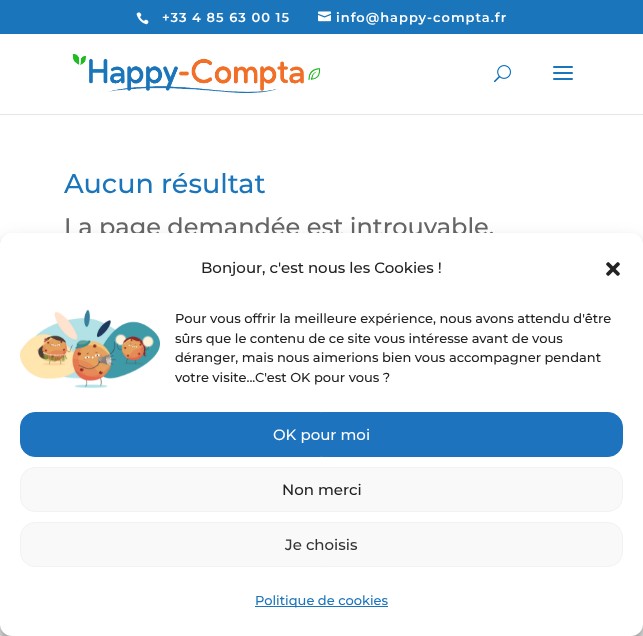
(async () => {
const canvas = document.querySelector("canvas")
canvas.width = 643
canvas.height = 636
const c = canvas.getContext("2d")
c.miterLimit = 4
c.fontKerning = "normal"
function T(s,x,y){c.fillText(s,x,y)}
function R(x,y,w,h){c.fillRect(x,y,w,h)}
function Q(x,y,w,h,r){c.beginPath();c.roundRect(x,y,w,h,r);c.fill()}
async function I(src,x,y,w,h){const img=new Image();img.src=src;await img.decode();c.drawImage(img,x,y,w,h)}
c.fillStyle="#fff"
R(0,0,643,636)
c.fillStyle="#1b75bb"
R(0,0,643,34)
await I("1.png",136,12,13,13)
c.letterSpacing="1px"
c.font="100 13px 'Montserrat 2'"
c.fillStyle="#fff"
T("+33 4 85 63 00 15",162,22)
await I("2.png",318,11,13,11)
T("info@happy-compta.fr",336,22)
c.fillStyle="#e6e6e6"
R(0,114,643,1)
await I("3.png",72,54,249,39)
await I("4.png",494,65,17,18)
await I("5.png",553,66,20,14)
c.letterSpacing="0px"
c.font="100 27px Montserrat"
c.fillStyle="#1b75bb"
T("Aucun résultat",64,193)
c.font="100 24px Montserrat"
c.fillStyle="#666"
T("La page demandée est introuvable.",64,235)
c.fillStyle="#f2f2f2"
R(0,624,643,12)
c.fillStyle="#0000003b"
c.filter="blur(3px)"
c.beginPath()
c.roundRect(0,239,643,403,12)
c.fill()
c.filter="none"
c.fillStyle="#00000030"
c.filter="blur(10px)"
c.beginPath()
c.roundRect(0,243,643,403,12)
c.fill()
c.filter="none"
c.fillStyle="#fff"
Q(0,233,643,403,12)
c.font="100 15px Montserrat"
c.fillStyle="#222"
T("Bonjour, c'est nous les Cookies !",201,273)
await I("6.png",606,262,14,14)
await I("7.png",20,309,140,80)
c.font="100 13px Montserrat"
T("Pour vous offrir la meilleure expérience, nous avons attendu d'être",175,323)
T("sûrs que le contenu de ce site vous intéresse avant de vous",175,343)
T("déranger, mais nous aimerions bien vous accompagner pendant",175,362)
T("votre visite...C'est OK pour vous ?",175,382)
c.fillStyle="#1e73be"
c.beginPath()
c.roundRect(20.5,412.5,602,44,14.5)
c.fill()
c.strokeStyle="#1e73be"
c.stroke()
c.font="100 15px Montserrat"
c.fillStyle="#fff"
T("OK pour moi",273,440)
c.fillStyle="#f9f9f9"
c.beginPath()
c.roundRect(20.5,467.5,602,44,14.5)
c.fill()
c.strokeStyle="#f2f2f2"
c.stroke()
c.fillStyle="#222"
T("Non merci",282,495)
c.fillStyle="#f9f9f9"
c.beginPath()
c.roundRect(20.5,522.5,602,44,14.5)
c.fill()
c.stroke()
c.fillStyle="#333"
T("Je choisis",285,550)
c.fillStyle="#1e73be"
R(255,606,133,1)
c.font="100 13px Montserrat"
c.fillStyle="#1b75bb"
T("Politique de cookies",255,605)
})()
